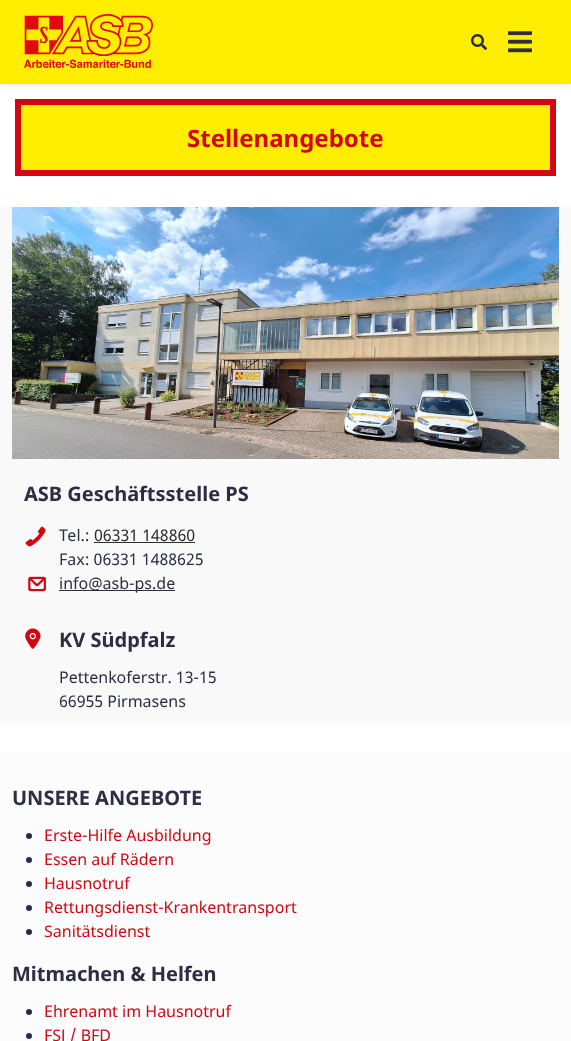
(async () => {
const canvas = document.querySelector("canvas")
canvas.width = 571
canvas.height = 1041
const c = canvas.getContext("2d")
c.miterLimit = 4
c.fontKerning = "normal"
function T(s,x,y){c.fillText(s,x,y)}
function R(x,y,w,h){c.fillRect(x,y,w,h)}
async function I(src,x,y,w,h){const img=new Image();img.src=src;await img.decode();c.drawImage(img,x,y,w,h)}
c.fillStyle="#fff"
R(0,0,571,1041)
c.fillStyle="#00000012"
c.filter="blur(2px)"
c.beginPath()
c.rect(0,2,571,84)
c.fill()
c.filter="none"
c.fillStyle="#fe0"
R(0,0,571,84)
await I("1.png",24,14,129,54)
await I("2.png",471,34,16,16)
await I("3.png",508,31,24,22)
c.beginPath()
c.rect(18,102,535,71)
c.fill()
c.strokeStyle="#d40612"
c.lineWidth=6
c.stroke()
c.font="bold 24px Noto Sans"
c.fillStyle="#d40612"
T("Stellenangebote",187,147)
c.fillStyle="#f9f9f9"
R(0,207,571,516)
await I("4.png",12,207,547,252)
c.font="bold 20px Noto Sans"
c.fillStyle="#2d2d46"
T("ASB Geschäftsstelle PS",24,501)
await I("5.png",25,526,21,21)
c.font="16px Noto Sans"
T("Tel.:",59,541)
c.fillStyle="#2d2d2d"
T("06331 148860",94,541)
R(94,542,101,1)
c.fillStyle="#2d2d46"
T("Fax: 06331 1488625",59,565)
await I("6.png",28,576,18,16)
R(59,590,116,1)
T("info@asb-ps.de",59,589)
await I("7.png",25,628,16,21)
c.font="bold 20px Noto Sans"
T("KV Südpfalz",59,647)
c.font="16px Noto Sans"
T("Pettenkoferstr. 13-15",59,683)
T("66955 Pirmasens",59,707)
c.fillStyle="#fcfcfc"
R(0,753,571,288)
c.font="bold 20px Noto Sans"
c.fillStyle="#2d2d46"
T("UNSERE ANGEBOTE",12,805)
c.beginPath()
c.arc(29,836,3,0,7)
c.fill()
c.font="16px Noto Sans"
c.fillStyle="#d40612"
T("Erste-Hilfe Ausbildung",44,841)
c.fillStyle="#2d2d46"
c.beginPath()
c.arc(29,860,3,0,7)
c.fill()
c.fillStyle="#d40612"
T("Essen auf Rädern",44,865)
c.fillStyle="#2d2d46"
c.beginPath()
c.arc(29,884,3,0,7)
c.fill()
c.fillStyle="#d40612"
T("Hausnotruf",44,889)
c.fillStyle="#2d2d46"
c.beginPath()
c.arc(29,908,3,0,7)
c.fill()
c.fillStyle="#d40612"
T("Rettungsdienst-Krankentransport",44,913)
c.fillStyle="#2d2d46"
c.beginPath()
c.arc(29,932,3,0,7)
c.fill()
c.fillStyle="#d40612"
T("Sanitätsdienst",44,937)
c.font="bold 20px Noto Sans"
c.fillStyle="#2d2d46"
T("Mitmachen & Helfen",12,981)
c.beginPath()
c.arc(29,1012,3,0,7)
c.fill()
c.font="16px Noto Sans"
c.fillStyle="#d40612"
T("Ehrenamt im Hausnotruf",44,1017)
c.fillStyle="#2d2d46"
c.beginPath()
c.arc(29,1036,3,0,7)
c.fill()
c.fillStyle="#d40612"
T("FSJ / BFD",44,1041)
})()
